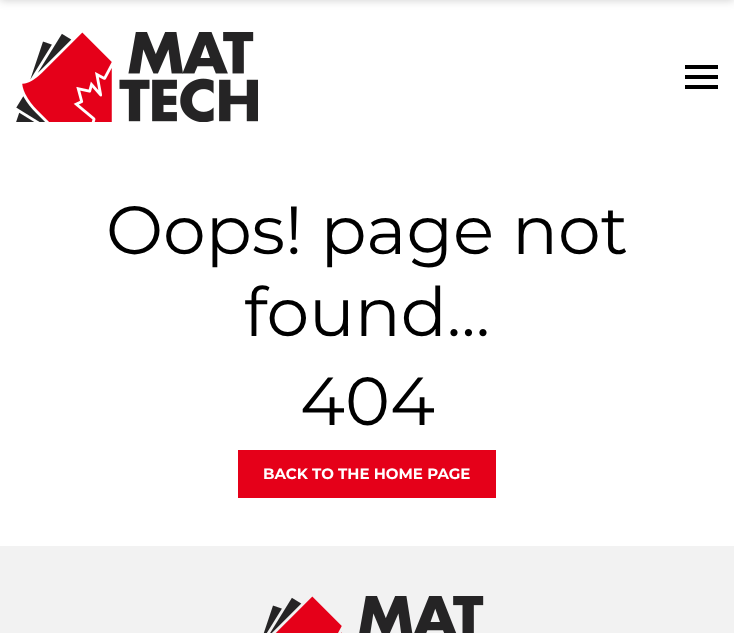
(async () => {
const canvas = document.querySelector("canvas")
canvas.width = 734
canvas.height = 633
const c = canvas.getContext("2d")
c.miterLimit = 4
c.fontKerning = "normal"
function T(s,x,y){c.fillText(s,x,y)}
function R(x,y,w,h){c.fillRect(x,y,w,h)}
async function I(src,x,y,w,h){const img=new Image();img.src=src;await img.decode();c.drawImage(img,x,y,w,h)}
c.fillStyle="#fff"
R(0,0,734,633)
c.fillStyle="#00000033"
c.filter="blur(5px)"
c.beginPath()
c.rect(0,-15,734,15)
c.fill()
c.filter="none"
await I("1.png",16,32,242,90)
c.fillStyle="#000"
R(685,75,33,4)
R(685,65,33,4)
R(685,85,33,4)
c.font="68px Montserrat"
T("Oops! page not",106,254)
T("found...",244,336)
T("404",300,425)
c.fillStyle="#e50019"
R(238,450,258,48)
c.font="bold 15px Montserrat"
c.fillStyle="#fff"
T("BACK TO THE HOME PAGE",263,479)
c.fillStyle="#f2f2f2"
R(0,546,734,87)
await I("2.png",263,596,221,37)
})()
